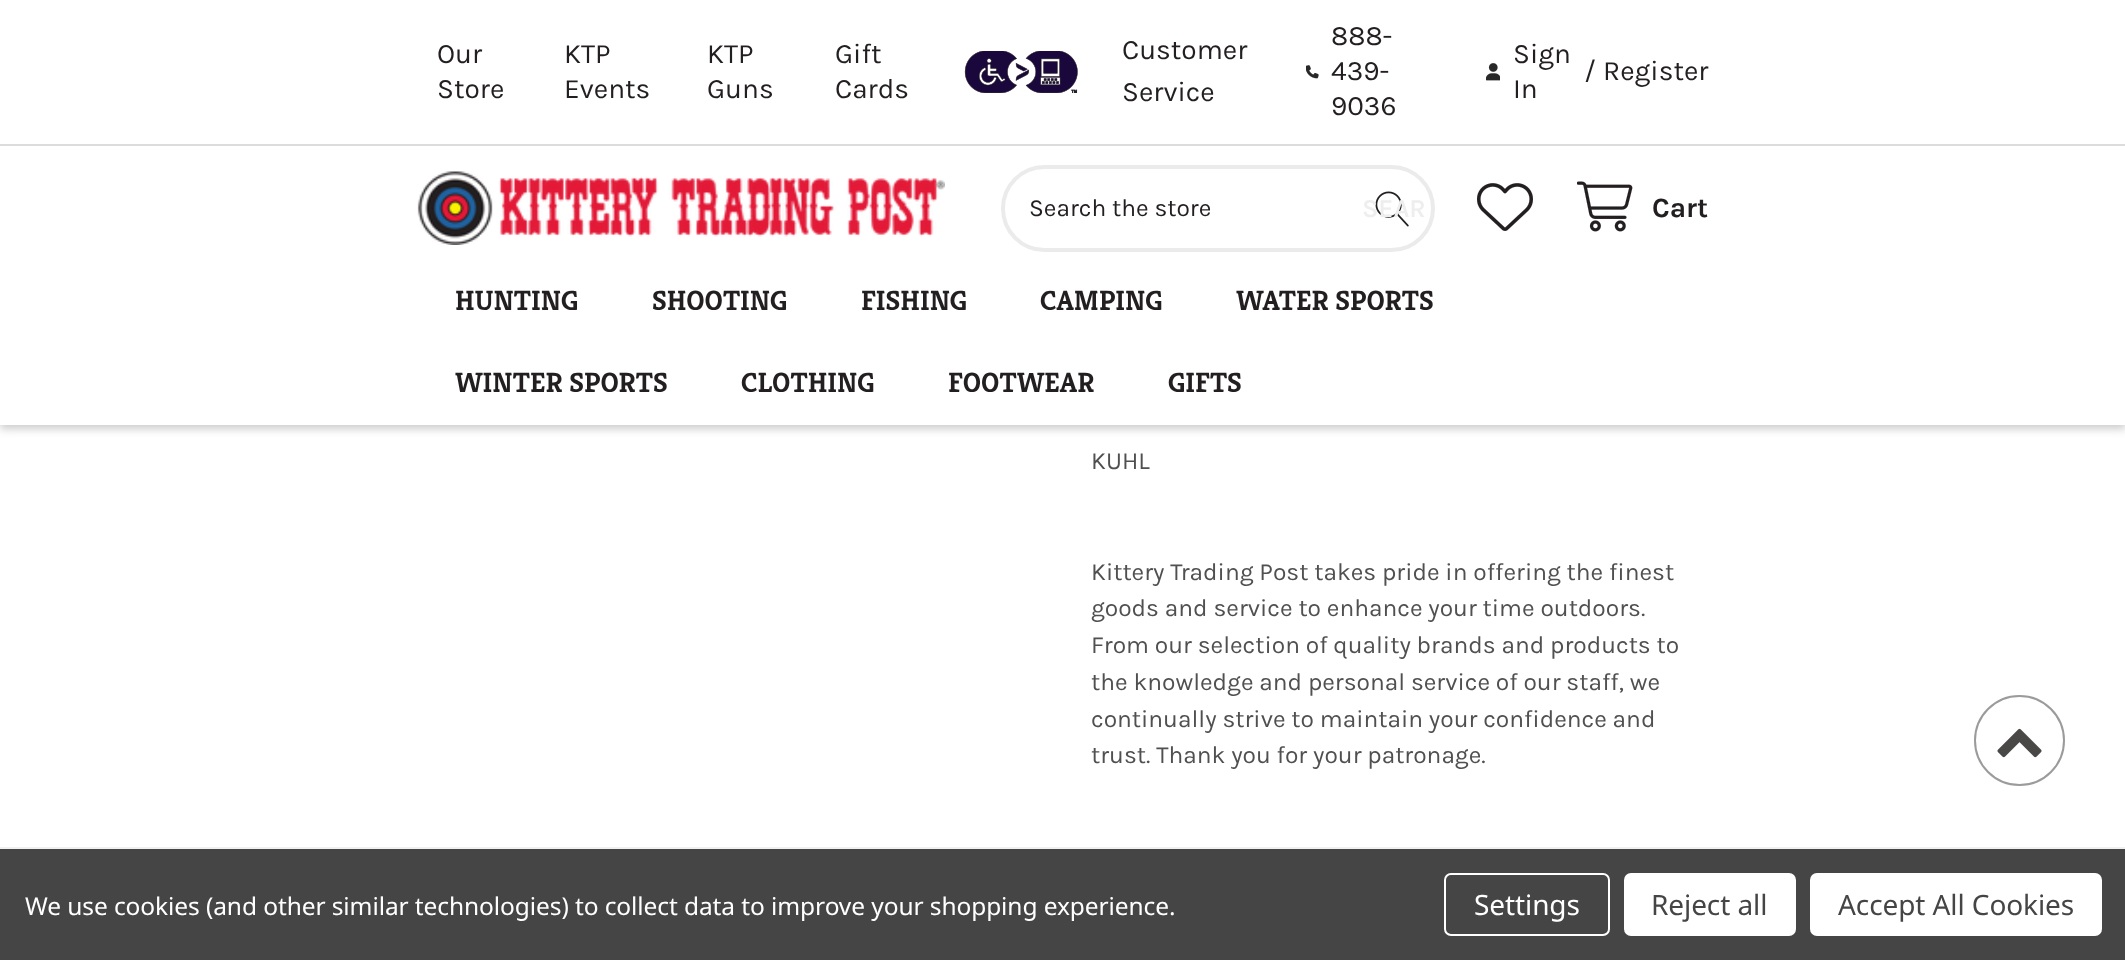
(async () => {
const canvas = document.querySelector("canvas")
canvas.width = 2125
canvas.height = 960
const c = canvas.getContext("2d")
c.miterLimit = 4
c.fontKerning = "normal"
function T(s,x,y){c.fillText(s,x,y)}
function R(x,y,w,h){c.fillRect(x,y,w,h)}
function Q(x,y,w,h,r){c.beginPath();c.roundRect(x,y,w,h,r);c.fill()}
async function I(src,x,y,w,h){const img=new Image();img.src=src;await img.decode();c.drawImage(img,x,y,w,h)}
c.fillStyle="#fff"
R(0,0,2125,960)
c.fillStyle="#00000033"
c.filter="blur(4.5px)"
c.beginPath()
c.rect(0,4,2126,425)
c.fill()
c.filter="none"
c.fillStyle="#fff"
R(0,0,2125,425)
c.fillStyle="#dcdcdc"
R(0,144,2125,2)
c.font="28px Karla"
c.fillStyle="#231f20"
T("Our",437,63)
T("Store",437,98)
T("KTP",564,63)
T("Events",564,98)
T("KTP",707,63)
T("Guns",707,98)
T("Gift",835,63)
T("Cards",835,98)
await I("1.png",964,51,114,42)
T("Customer",1122,59)
T("Service",1122,101)
await I("2.png",1306,65,13,14)
T("888-",1331,45)
T("439-",1331,80)
T("9036",1331,115)
await I("3.png",1486,63,14,18)
T("Sign",1513,63)
T("In",1513,98)
T("/",1584,80)
T("Register",1603,80)
await I("4.png",417,171,528,74)
c.beginPath()
c.roundRect(1003,167,430,83,41.5)
c.strokeStyle="#ebebeb"
c.lineWidth=4
c.stroke()
await I("5.png",1375,191,34,36)
c.font="24.5px Karla"
T("Search the store",1029,216)
c.font="600 26px Karla"
c.fillStyle="#eee"
T("SEAR",1362,217)
await I("6.png",1477,183,56,48)
await I("7.png",1577,181,56,51)
c.font="bold 28px Karla"
c.fillStyle="#231f20"
T("Cart",1652,217)
c.font="bold 28px Kreon"
T("HUNTING",455,310)
T("SHOOTING",652,310)
T("FISHING",861,310)
T("CAMPING",1040,310)
T("WATER SPORTS",1236,310)
T("WINTER SPORTS",455,392)
T("CLOTHING",741,392)
T("FOOTWEAR",948,392)
T("GIFTS",1168,392)
c.font="24.5px Karla"
c.fillStyle="#505050"
T("KUHL",1091,469)
T("Kittery Trading Post takes pride in offering the finest",1091,580)
T("goods and service to enhance your time outdoors.",1091,616)
T("From our selection of quality brands and products to",1091,653)
T("the knowledge and personal service of our staff, we",1091,690)
T("continually strive to maintain your confidence and",1091,727)
T("trust. Thank you for your patronage.",1091,763)
c.fillStyle="#f0f0f0"
R(0,847,2125,2)
c.beginPath()
c.arc(2019.5,740.5,44.5,0,7)
c.strokeStyle="#9b9b9b"
c.lineWidth=2
c.stroke()
await I("8.png",1997,728,45,30)
c.fillStyle="#454545"
R(0,849,2125,111)
c.letterSpacing="-0.09px"
c.font="24.5px Noto Sans"
c.fillStyle="#fff"
T("We use cookies (and other similar technologies) to collect data to improve your shopping experience.",25,915)
c.beginPath()
c.roundRect(1445,874,164,61,6)
c.strokeStyle="#fff"
c.stroke()
c.font="28px Noto Sans"
T("Settings",1474,915)
Q(1624,873,172,63,7)
c.fillStyle="#454545"
T("Reject all",1651,915)
c.fillStyle="#fff"
Q(1810,873,292,63,7)
c.fillStyle="#454545"
T("Accept All Cookies",1838,915)
})()
